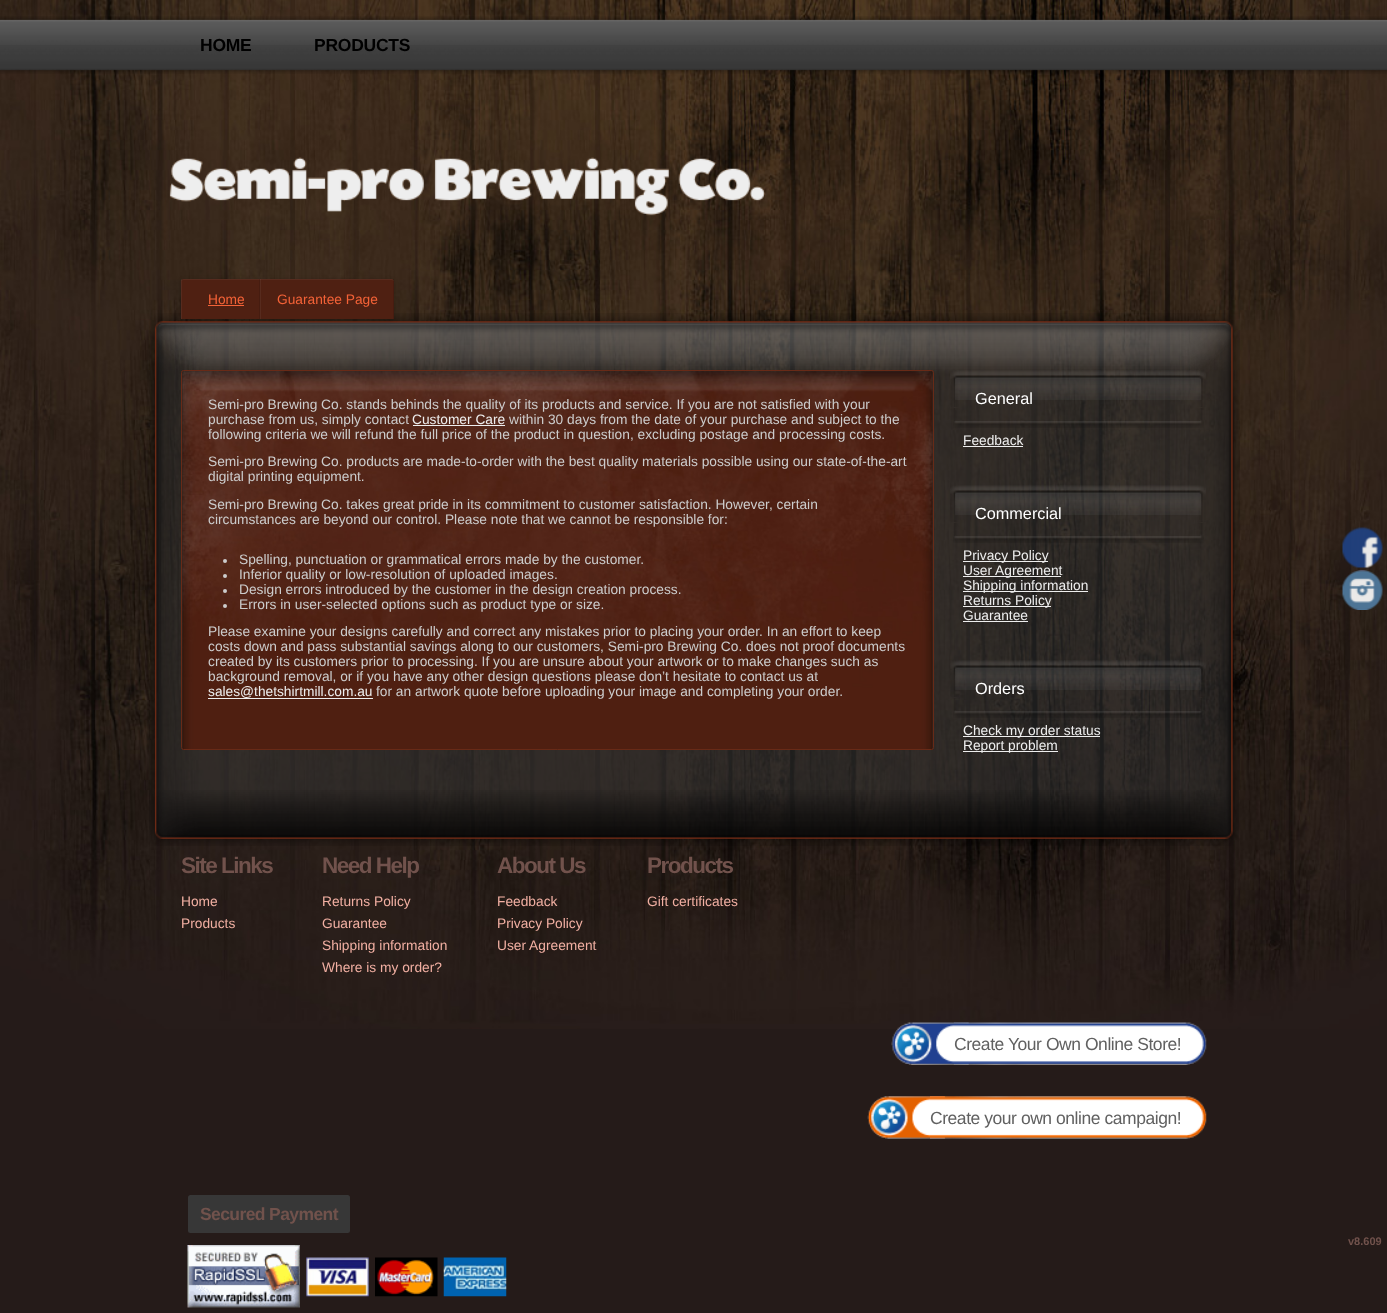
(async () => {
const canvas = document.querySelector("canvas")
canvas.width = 1387
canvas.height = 1313
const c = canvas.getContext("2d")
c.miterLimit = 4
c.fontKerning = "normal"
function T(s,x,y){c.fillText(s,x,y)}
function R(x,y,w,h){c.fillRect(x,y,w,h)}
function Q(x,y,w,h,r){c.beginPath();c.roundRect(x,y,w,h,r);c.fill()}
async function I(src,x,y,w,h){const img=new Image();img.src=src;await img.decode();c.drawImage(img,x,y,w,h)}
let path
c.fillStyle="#251b19"
R(0,0,1387,1313)
await I("1.png",0,0,1387,1029)
await I("2.png",0,16,1387,58)
c.letterSpacing="-0.25px"
c.font="bold 17.5px Liberation Sans"
c.fillStyle="#000"
T("HOME",200,51)
T("PRODUCTS",314,51)
await I("3.png",169,157,597,59)
await I("4.png",147,313,1093,477)
c.fillStyle="#00000033"
c.filter="blur(2px)"
c.beginPath()
c.roundRect(181,280,213,40,2.5)
c.fill()
c.filter="none"
c.fillStyle="#4f2012"
c.beginPath()
c.roundRect(181,279,213,40,[2.5,2.5,0,0])
c.fill()
c.fillStyle="#ffffff0d"
path = new Path2D("M184 280h207c2 0 3 1 3 2c0-2-1-3-2-3h-208c-2 0-3 1-3 3c0-1 1-2 3-2z")
c.fill(path)
c.fillStyle="#0000001a"
R(259,279,1,40)
c.fillStyle="#ffffff0d"
R(181,279,1,40)
c.letterSpacing="0px"
c.font="13.75px Liberation Sans"
c.fillStyle="#f46237"
T("Home",208,304)
R(208,305,36,1)
c.fillStyle="#0000001a"
R(393,279,1,40)
c.fillStyle="#ffffff0d"
R(260,279,1,40)
c.fillStyle="#f46237"
T("Guarantee Page",277,304)
await I("5.png",182,371,751,379)
c.beginPath()
c.roundRect(181.5,370.5,752,379,2)
c.strokeStyle="#682a17"
c.stroke()
c.fillStyle="#ccc"
T("Semi-pro Brewing Co. stands behinds the quality of its products and service. If you are not satisfied with your",208,409)
T("purchase from us, simply contact",208,424)
c.fillStyle="#eee"
T("Customer Care",412,424)
R(413,425,92,1)
c.fillStyle="#ccc"
T("within 30 days from the date of your purchase and subject to the",509,424)
T("following criteria we will refund the full price of the product in question, excluding postage and processing costs.",208,439)
T("Semi-pro Brewing Co. products are made-to-order with the best quality materials possible using our state-of-the-art",208,466)
T("digital printing equipment.",208,481)
T("Semi-pro Brewing Co. takes great pride in its commitment to customer satisfaction. However, certain",208,509)
T("circumstances are beyond our control. Please note that we cannot be responsible for:",208,524)
c.beginPath()
c.arc(225,561,2,0,7)
c.fill()
T("Spelling, punctuation or grammatical errors made by the customer.",239,564)
c.beginPath()
c.arc(225,576,2,0,7)
c.fill()
T("Inferior quality or low-resolution of uploaded images.",239,579)
c.beginPath()
c.arc(225,591,2,0,7)
c.fill()
T("Design errors introduced by the customer in the design creation process.",239,594)
c.beginPath()
c.arc(225,606,2,0,7)
c.fill()
T("Errors in user-selected options such as product type or size.",239,609)
T("Please examine your designs carefully and correct any mistakes prior to placing your order. In an effort to keep",208,636)
T("costs down and pass substantial savings along to our customers, Semi-pro Brewing Co. does not proof documents",208,651)
T("created by its customers prior to processing. If you are unsure about your artwork or to make changes such as",208,666)
T("background removal, or if you have any other design questions please don’t hesitate to contact us at",208,681)
c.fillStyle="#eee"
T("sales@thetshirtmill.com.au",208,696)
R(208,698,165,1)
c.fillStyle="#ccc"
T("for an artwork quote before uploading your image and completing your order.",376,696)
await I("6.png",950,370,256,37)
c.font="16.25px Liberation Sans"
c.fillStyle="#fff"
T("General",975,404)
await I("7.png",953,408,251,20)
c.font="13.75px Liberation Sans"
c.fillStyle="#eee"
T("Feedback",963,445)
R(963,446,60,1)
await I("8.png",950,485,256,37)
c.font="16.25px Liberation Sans"
c.fillStyle="#fff"
T("Commercial",975,519)
await I("9.png",953,523,251,20)
c.fillStyle="#eee"
R(963,561,85,1)
c.font="13.75px Liberation Sans"
T("Privacy Policy",963,560)
R(963,576,98,1)
T("User Agreement",963,575)
R(963,591,125,1)
T("Shipping information",963,590)
R(963,606,88,1)
T("Returns Policy",963,605)
T("Guarantee",963,620)
R(963,621,65,1)
await I("10.png",950,660,256,37)
c.font="16.25px Liberation Sans"
c.fillStyle="#fff"
T("Orders",975,694)
await I("11.png",953,698,249,20)
c.fillStyle="#eee"
R(963,736,137,1)
c.font="13.75px Liberation Sans"
T("Check my order status",963,735)
R(963,751,95,1)
T("Report problem",963,750)
await I("12.png",149,790,1090,56)
c.letterSpacing="-1.5px"
c.font="bold 22.5px Liberation Sans"
c.fillStyle="#71524c"
T("Site Links",181,873)
c.letterSpacing="0px"
c.font="13.75px Liberation Sans"
c.fillStyle="#f1afa2"
T("Home",181,906)
T("Products",181,928)
c.letterSpacing="-1.5px"
c.font="bold 22.5px Liberation Sans"
c.fillStyle="#71524c"
T("Need Help",322,873)
c.letterSpacing="0px"
c.font="13.75px Liberation Sans"
c.fillStyle="#f1afa2"
T("Returns Policy",322,906)
T("Guarantee",322,928)
T("Shipping information",322,950)
T("Where is my order?",322,972)
c.letterSpacing="-1.5px"
c.font="bold 22.5px Liberation Sans"
c.fillStyle="#71524c"
T("About Us",497,873)
c.letterSpacing="0px"
c.font="13.75px Liberation Sans"
c.fillStyle="#f1afa2"
T("Feedback",497,906)
T("Privacy Policy",497,928)
T("User Agreement",497,950)
c.letterSpacing="-1.5px"
c.font="bold 22.5px Liberation Sans"
c.fillStyle="#71524c"
T("Products",647,873)
c.letterSpacing="0px"
c.font="13.75px Liberation Sans"
c.fillStyle="#f1afa2"
T("Gift certificates",647,906)
await I("13.png",891,1022,78,43)
await I("14.png",953,1022,254,43)
c.letterSpacing="-0.45px"
c.font="17.5px Liberation Sans"
c.fillStyle="#616161"
T("Create Your Own Online Store!",954,1050)
await I("15.png",867,1096,79,43)
await I("16.png",930,1096,277,43)
T("Create your own online campaign!",930,1124)
c.fillStyle="#373737"
Q(188,1195,162,38,2.5)
c.letterSpacing="-0.6px"
c.font="bold 17.5px Liberation Sans"
c.fillStyle="#71524c"
T("Secured Payment",200,1220)
await I("17.png",187,1245,113,63)
await I("18.png",306,1257,63,40)
await I("19.png",375,1257,63,40)
await I("20.png",443,1257,64,40)
c.letterSpacing="0px"
c.font="bold 11px Liberation Sans"
T("v8.609",1348,1245)
await I("21.png",1342,527,41,41)
await I("22.png",1342,570,41,40)
})()
